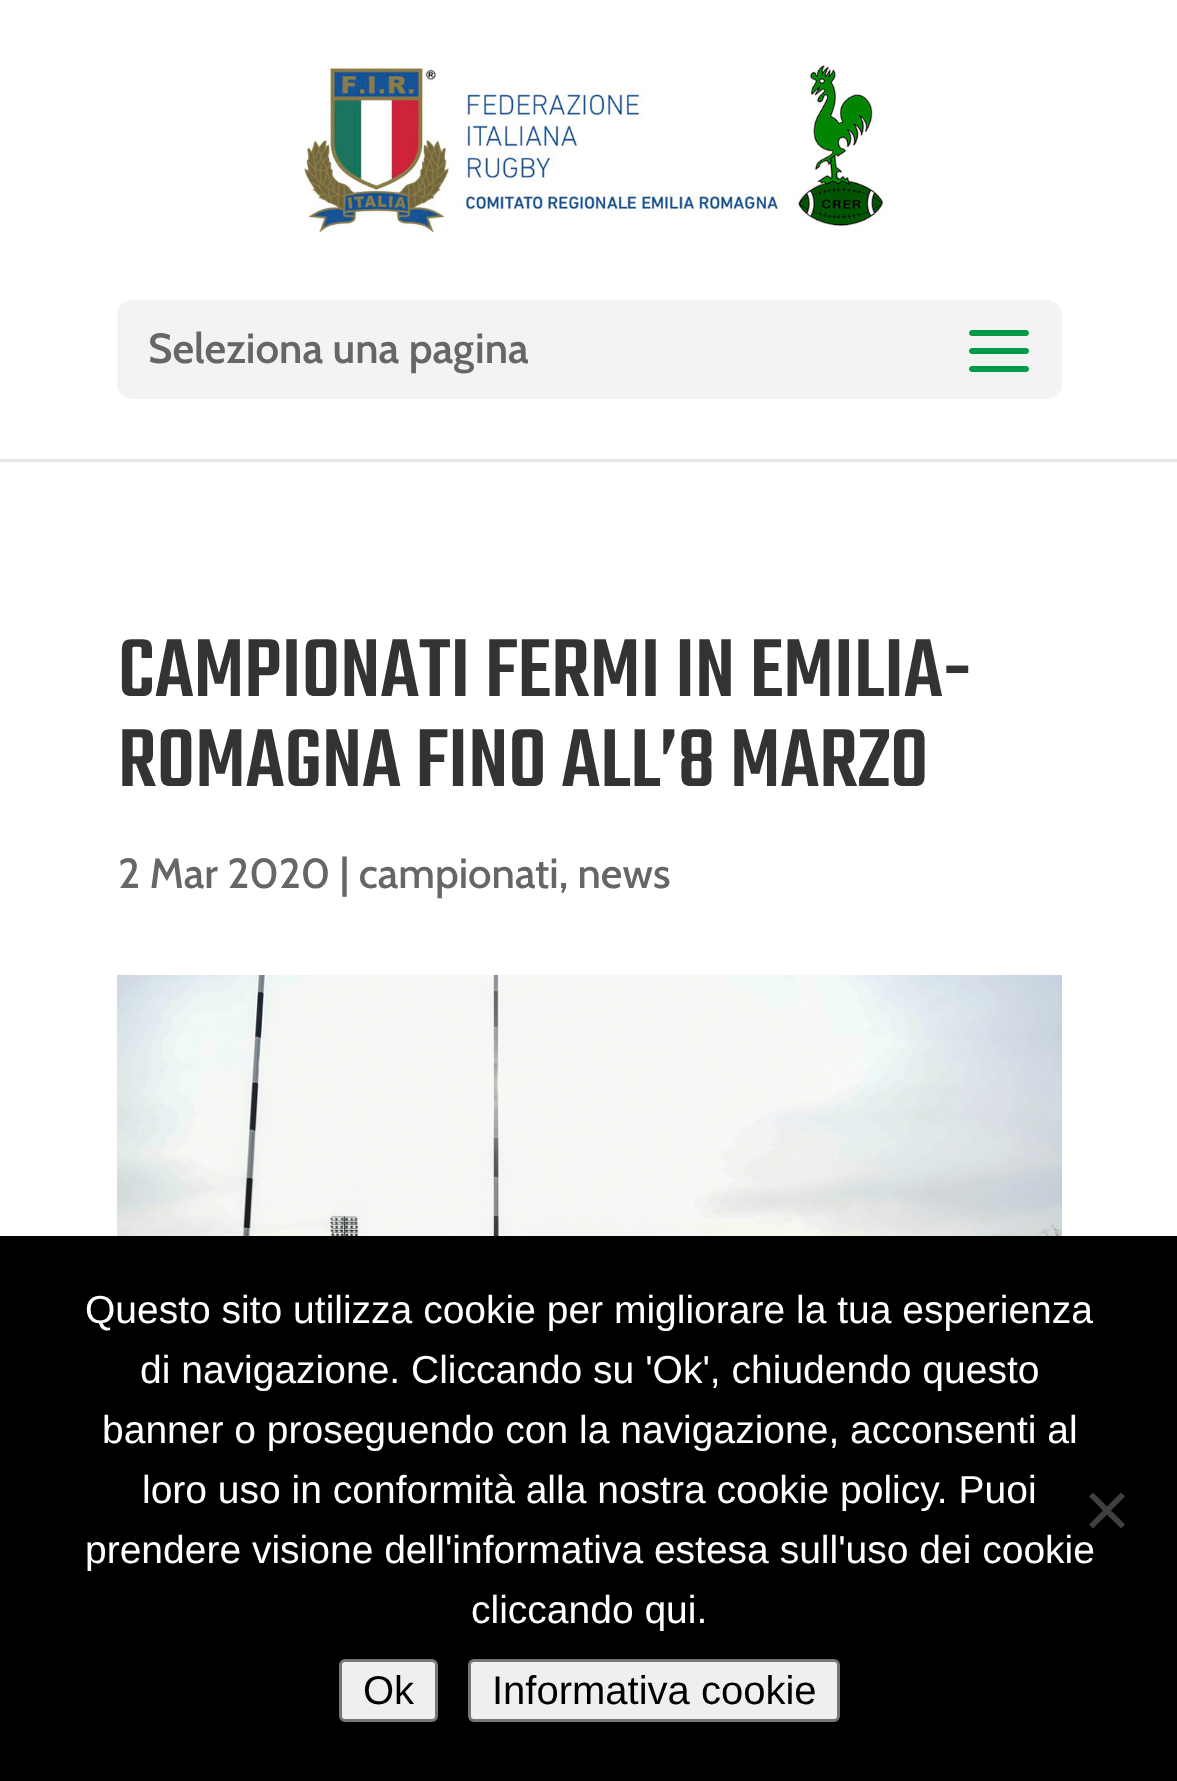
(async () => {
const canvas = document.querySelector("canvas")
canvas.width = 1177
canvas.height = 1781
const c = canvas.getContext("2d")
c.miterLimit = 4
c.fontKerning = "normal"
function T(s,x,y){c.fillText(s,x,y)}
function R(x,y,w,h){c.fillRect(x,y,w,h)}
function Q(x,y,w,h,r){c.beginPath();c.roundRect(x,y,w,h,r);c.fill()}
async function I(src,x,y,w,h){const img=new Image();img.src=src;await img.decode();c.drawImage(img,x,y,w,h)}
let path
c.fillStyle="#fff"
R(0,0,1177,1781)
c.fillStyle="#e6e6e6"
R(0,459,1177,3)
await I("1.png",303,64,583,169)
c.fillStyle="#f3f3f3"
Q(117,300,945,99,15)
c.font="600 42px Cabin"
c.fillStyle="#666"
T("Seleziona una pagina",148,363)
await I("2.png",969,330,60,42)
c.font="500 90px Teko"
c.fillStyle="#333"
T("CAMPIONATI FERMI IN EMILIA-",118,696)
T("ROMAGNA FINO ALL’8 MARZO",118,786)
c.font="500 42px Cabin"
c.fillStyle="#666"
T("2 Mar 2020 | campionati, news",118,888)
await I("3.png",117,975,945,261)
c.fillStyle="#000"
R(0,1236,1177,545)
c.font="39px Liberation Sans"
c.fillStyle="#fff"
T("Questo sito utilizza cookie per migliorare la tua esperienza",85,1323)
T("di navigazione. Cliccando su 'Ok', chiudendo questo",140,1383)
T("banner o proseguendo con la navigazione, acconsenti al",102,1443)
T("loro uso in conformità alla nostra cookie policy. Puoi",142,1503)
T("prendere visione dell'informativa estesa sull'uso dei cookie",85,1563)
T("cliccando qui.",471,1623)
c.fillStyle="#404040"
path = new Path2D("M1121 1492.5l4 4l-32 32l-4-4z")
c.fill(path)
path = new Path2D("M1089 1496.5l4-4l32 32l-4 4z")
c.fill(path)
c.fillStyle="#efefef"
c.beginPath()
c.roundRect(340.5,1660.5,96,60,4.5)
c.fill()
c.strokeStyle="#767676"
c.lineWidth=3
c.stroke()
c.font="40px Liberation Sans"
c.fillStyle="#000"
T("Ok",363,1704)
c.fillStyle="#efefef"
c.beginPath()
c.roundRect(469.5,1660.5,369,60,4.5)
c.fill()
c.stroke()
c.fillStyle="#000"
T("Informativa cookie",492,1704)
})()
